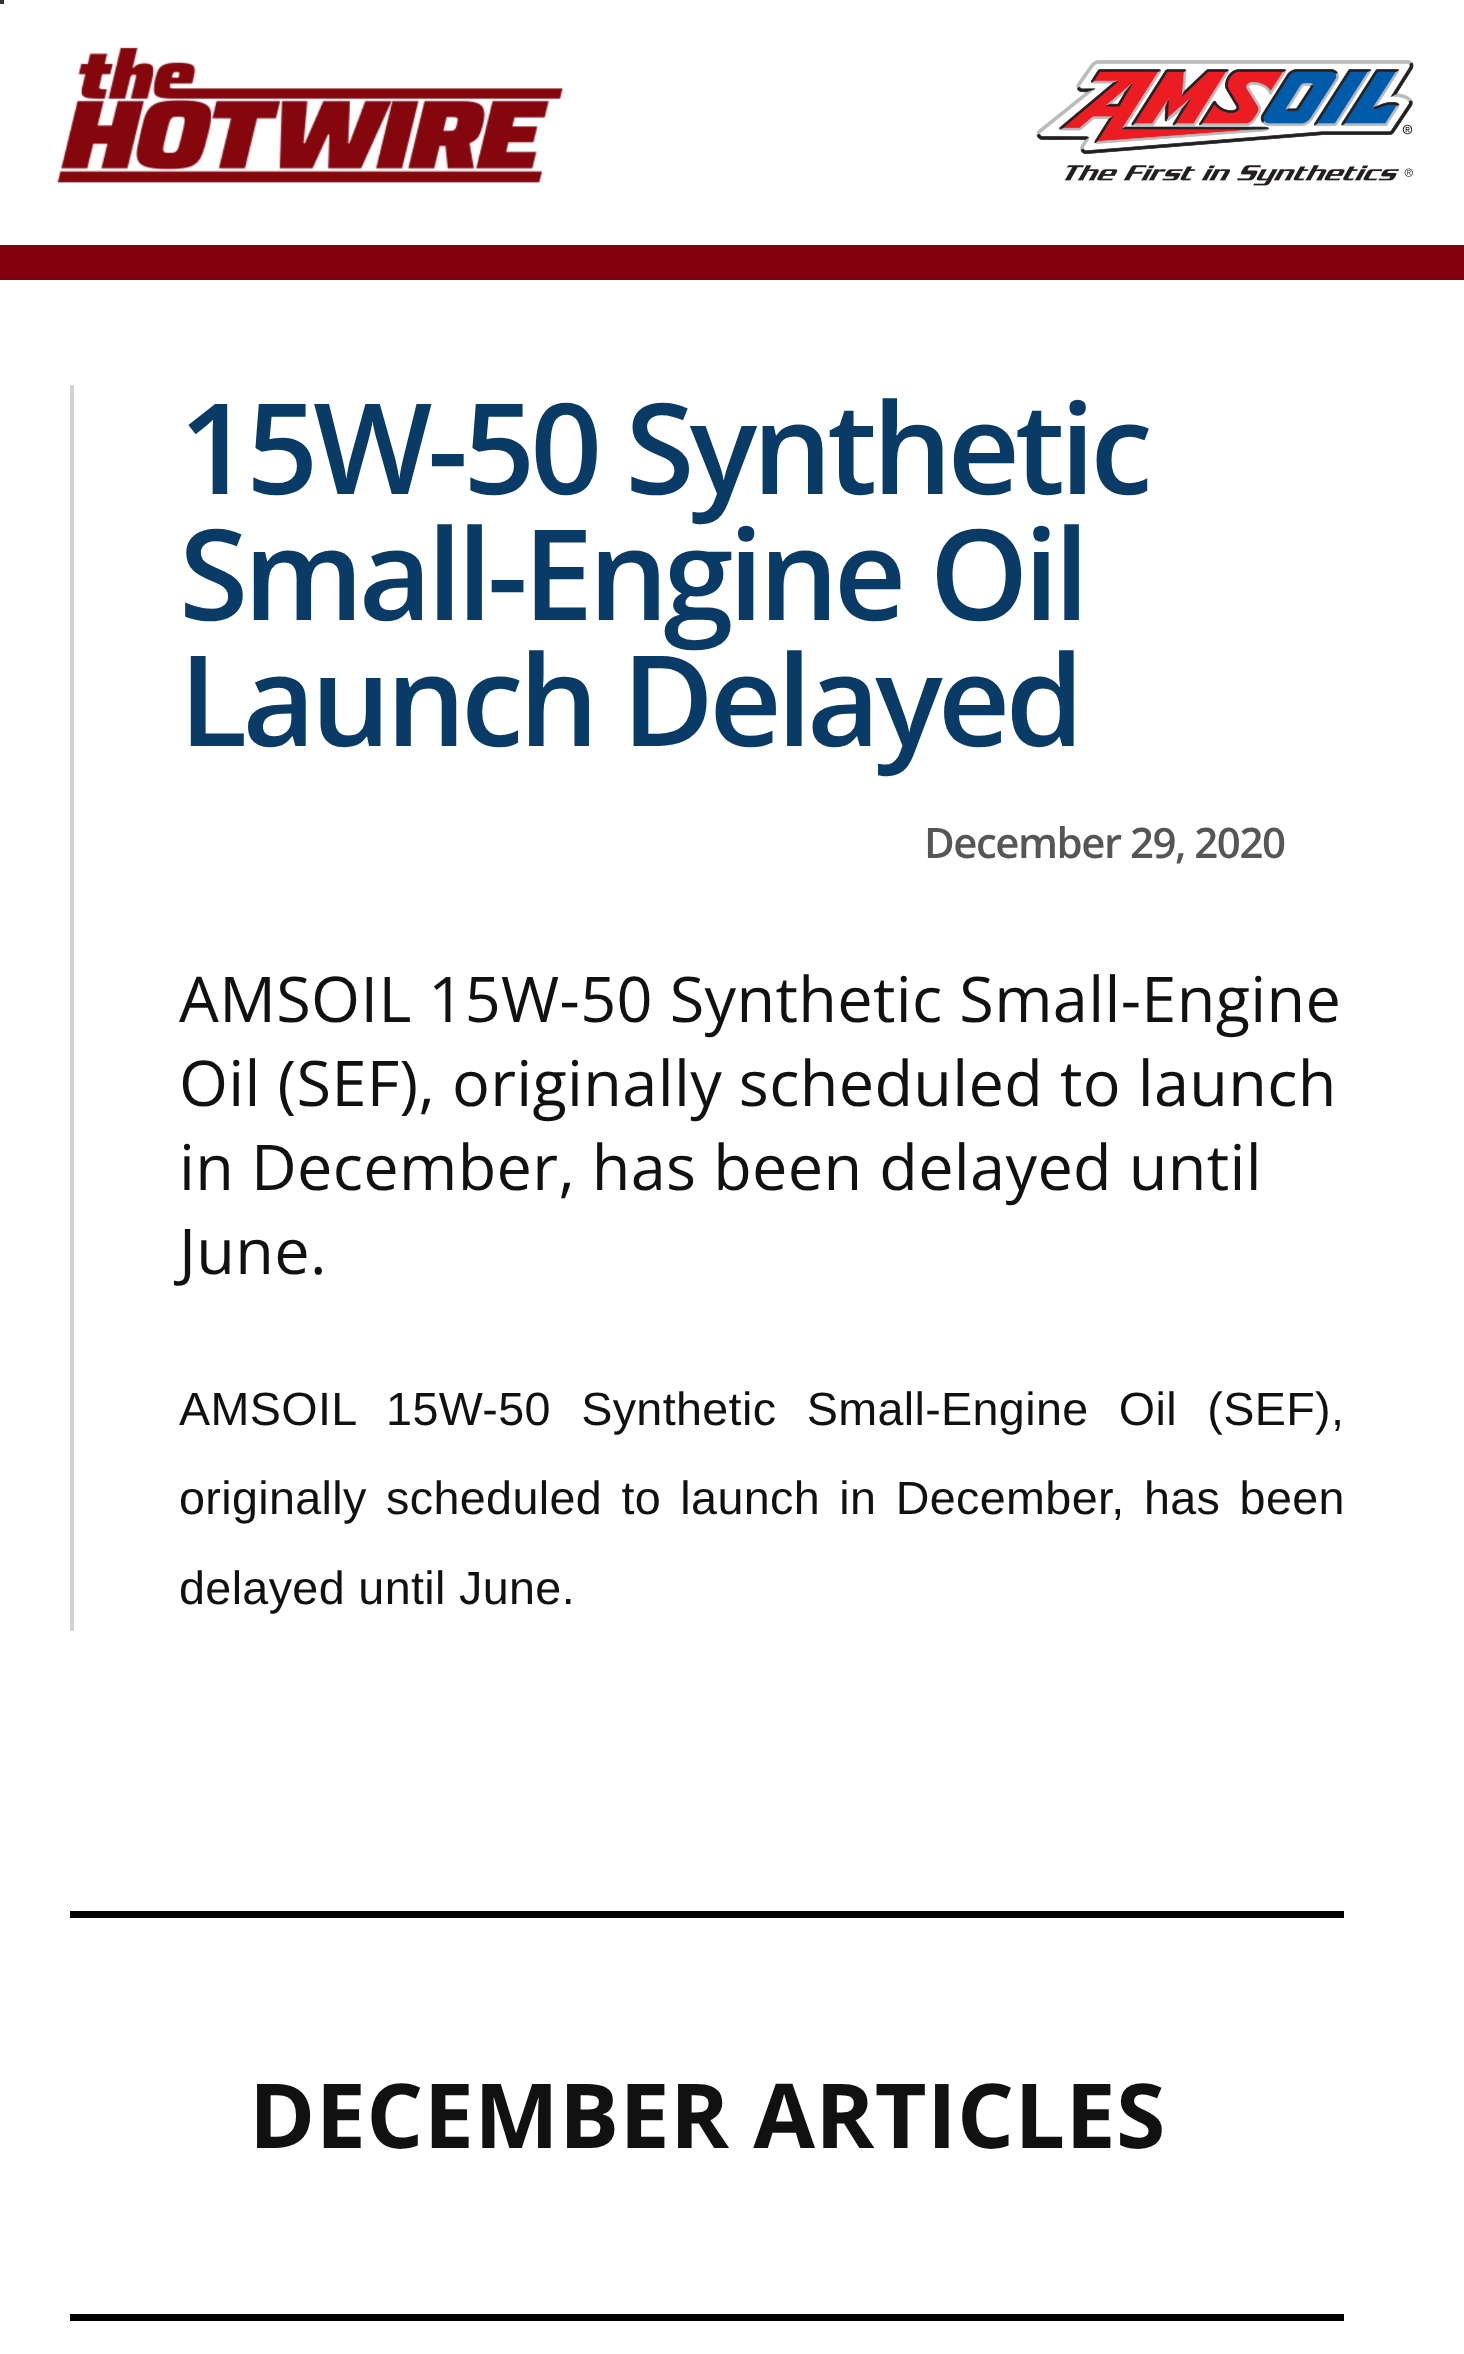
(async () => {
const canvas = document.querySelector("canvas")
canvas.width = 1464
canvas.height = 2354
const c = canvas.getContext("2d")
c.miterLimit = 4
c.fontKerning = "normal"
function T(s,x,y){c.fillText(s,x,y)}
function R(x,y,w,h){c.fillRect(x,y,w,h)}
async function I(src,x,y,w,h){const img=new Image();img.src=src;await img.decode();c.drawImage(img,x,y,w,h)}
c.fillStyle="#fff"
R(0,0,1464,2354)
c.fillStyle="#333"
R(0,0,4,4)
c.fillStyle="#84000e"
R(0,245,1464,35)
await I("1.png",56,47,507,137)
await I("2.png",1036,60,378,126)
c.fillStyle="#d0d0d0"
R(70,385,4,1246)
c.letterSpacing="-4.9px"
c.font="600 126px Open Sans"
c.fillStyle="#093b66"
T("15W-50 Synthetic",179,494)
T("Small-Engine Oil",179,620)
T("Launch Delayed",179,746)
c.letterSpacing="-1.5px"
c.font="600 42px Open Sans"
c.fillStyle="#565656"
T("December 29, 2020",924,858)
c.letterSpacing="0.35px"
c.font="63px Open Sans"
c.fillStyle="#111"
T("AMSOIL 15W-50 Synthetic Small-Engine",179,1022)
T("Oil (SEF), originally scheduled to launch",179,1106)
T("in December, has been delayed until",179,1190)
T("June.",179,1274)
c.wordSpacing="17px"
c.font="46.7px Liberation Sans"
T("AMSOIL 15W-50 Synthetic Small-Engine Oil (SEF),",179,1425)
c.wordSpacing="6px"
T("originally scheduled to launch in December, has been",179,1514)
c.wordSpacing="0px"
T("delayed until June.",179,1604)
c.fillStyle="#000"
R(70,1911,1274,7)
c.font="bold 89.6px Open Sans"
c.fillStyle="#111"
T("DECEMBER ARTICLES",249,2148)
c.fillStyle="#000"
R(70,2314,1274,7)
})()
